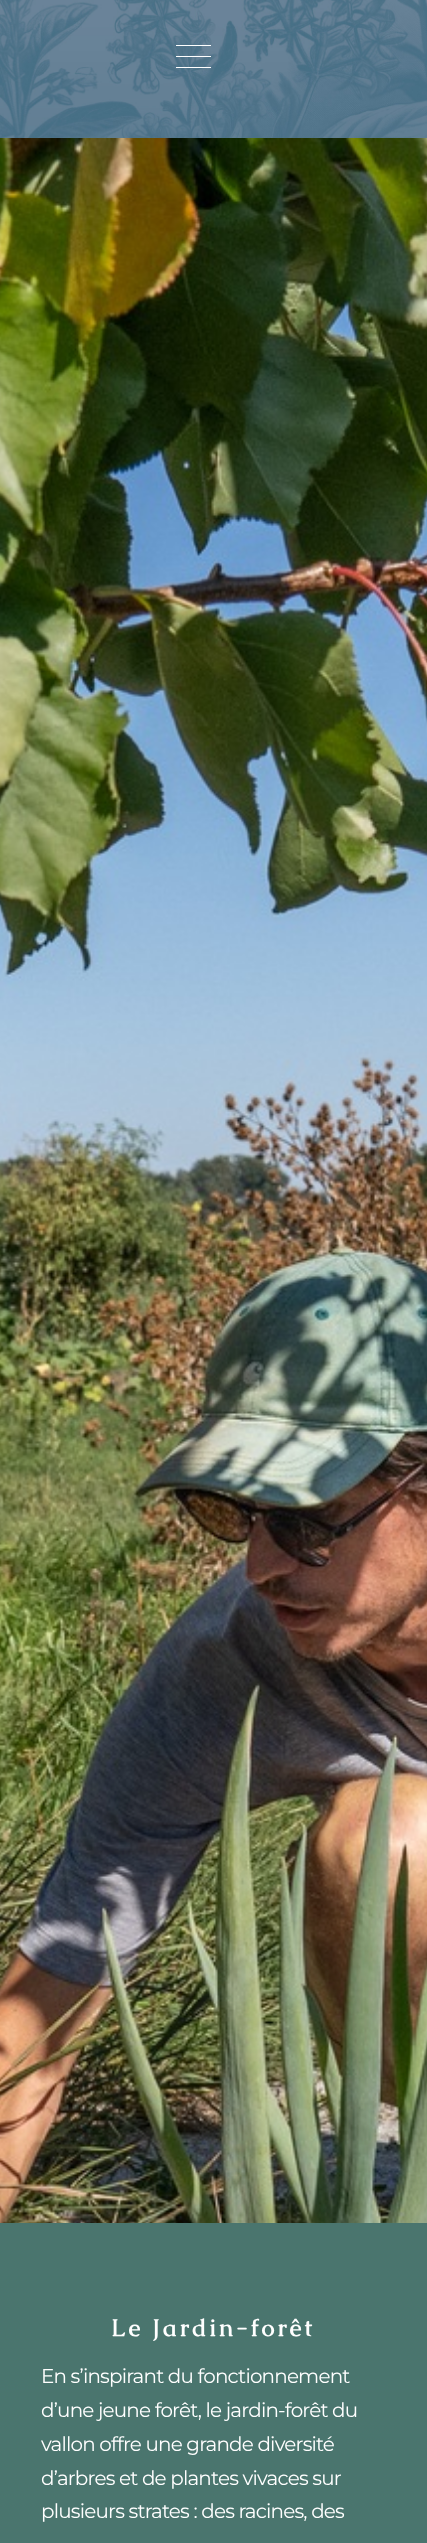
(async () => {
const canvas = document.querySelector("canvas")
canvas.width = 427
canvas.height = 2543
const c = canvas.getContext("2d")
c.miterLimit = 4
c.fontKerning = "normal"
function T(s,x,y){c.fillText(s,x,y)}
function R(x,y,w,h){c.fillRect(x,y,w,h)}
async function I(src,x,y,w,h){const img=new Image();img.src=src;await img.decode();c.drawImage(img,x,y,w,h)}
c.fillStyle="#fff"
R(0,0,427,2543)
await I("1.png",0,0,427,138)
R(176,45,35,1)
R(176,56,35,1)
R(176,67,35,1)
await I("2.png",0,138,427,2085)
c.fillStyle="#4a756e"
R(0,2223,427,320)
c.letterSpacing="2.7px"
c.font="bold 24.25px Caudex"
c.fillStyle="#fff"
T("Le Jardin-forêt",111,2336)
c.letterSpacing="-0.8px"
c.font="19.9px Montserrat"
T("En s’inspirant du fonctionnement",41,2383)
T("d’une jeune forêt, le jardin-forêt du",41,2417)
T("vallon offre une grande diversité",41,2451)
T("d’arbres et de plantes vivaces sur",41,2485)
T("plusieurs strates : des racines, des",41,2518)
})()
